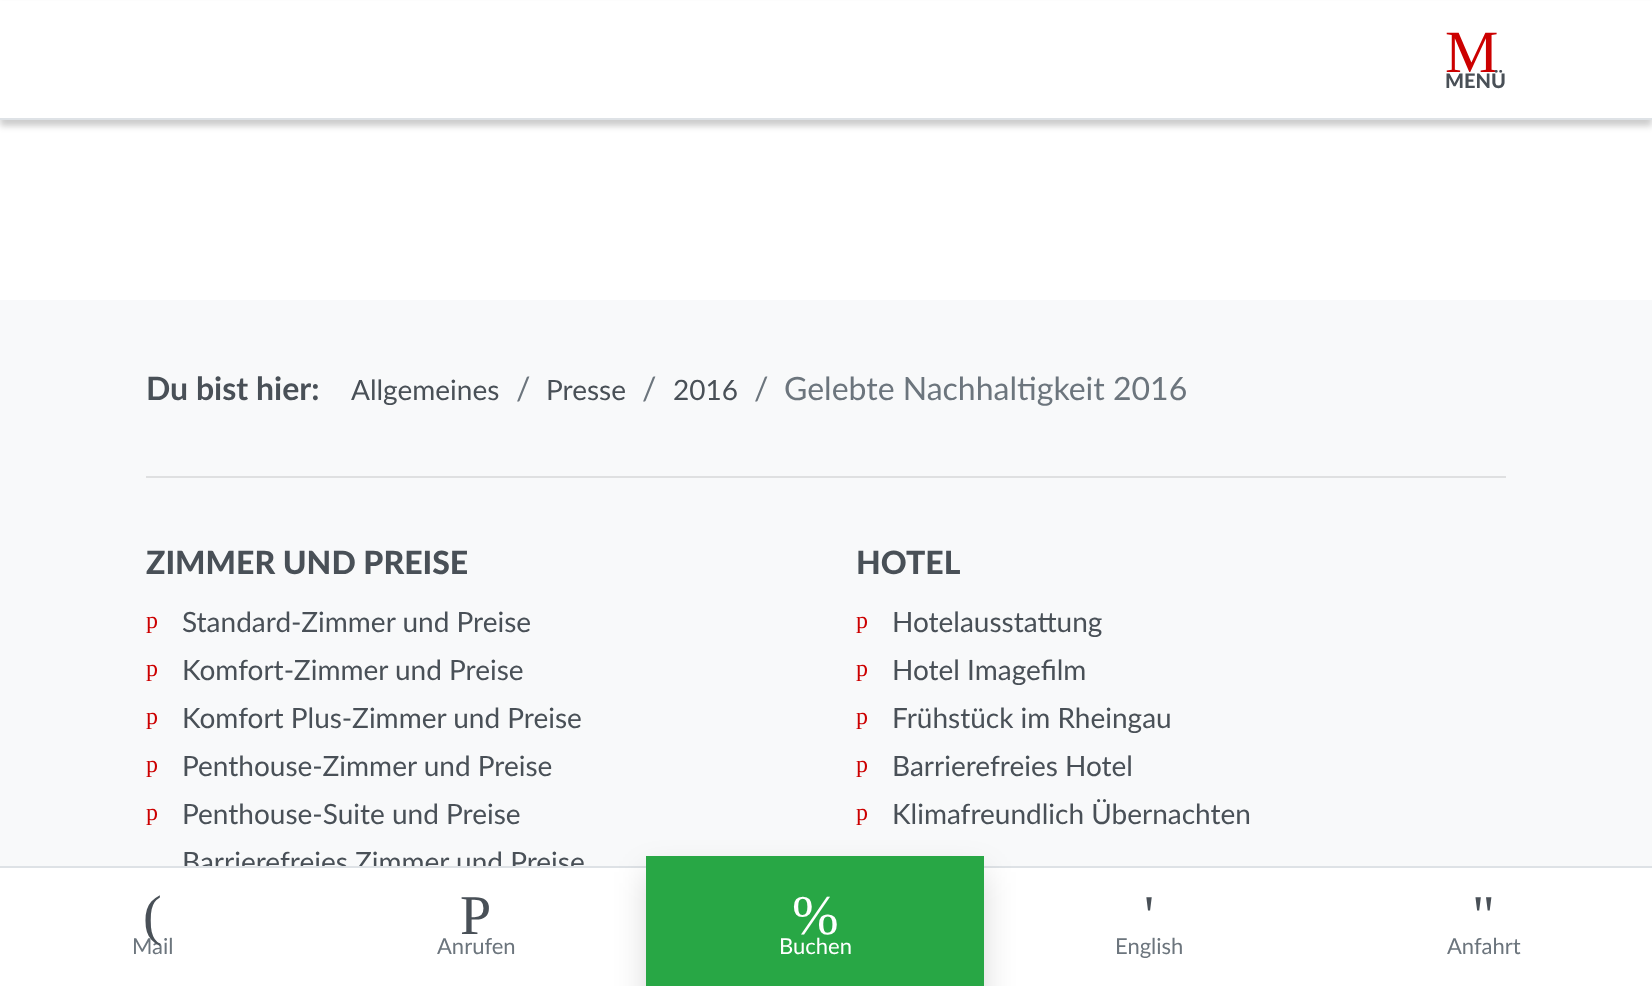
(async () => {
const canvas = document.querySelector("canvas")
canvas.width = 1652
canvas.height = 986
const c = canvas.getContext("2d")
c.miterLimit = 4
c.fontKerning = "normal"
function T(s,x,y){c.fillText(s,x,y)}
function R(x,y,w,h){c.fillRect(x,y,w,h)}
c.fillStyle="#fff"
R(0,0,1652,986)
c.fillStyle="#00000033"
c.filter="blur(3px)"
c.beginPath()
c.rect(0,6,1652,120)
c.fill()
c.filter="none"
c.fillStyle="#fff"
R(0,1,1652,117)
c.fillStyle="#dee2e6"
R(0,118,1652,2)
c.font="60px Liberation Serif"
c.fillStyle="#c00"
T("M",1445,72)
c.font="900 20px Lato"
c.fillStyle="#495057"
T("MENÜ",1445,88)
c.fillStyle="#f8f9fa"
R(0,300,1652,566)
c.font="bold 32px Lato"
c.fillStyle="#495057"
T("Du bist hier:",146,400)
c.font="28px Lato"
T("Allgemeines",351,400)
c.font="32px Lato"
c.fillStyle="#6c757d"
T("/",516,400)
c.font="28px Lato"
c.fillStyle="#495057"
T("Presse",546,400)
c.font="32px Lato"
c.fillStyle="#6c757d"
T("/",642,400)
c.font="28px Lato"
c.fillStyle="#495057"
T("2016",673,400)
c.font="32px Lato"
c.fillStyle="#6c757d"
T("/",754,400)
T("Gelebte Nachhaltigkeit 2016",784,400)
c.fillStyle="#dfe0e1"
R(146,476,1360,2)
c.font="900 32px Lato"
c.fillStyle="#495057"
T("ZIMMER UND PREISE",146,574)
c.font="24px Liberation Serif"
c.fillStyle="#c00"
T("p",146,628)
c.font="28px Lato"
c.fillStyle="#495057"
T("Standard-Zimmer und Preise",182,632)
c.font="24px Liberation Serif"
c.fillStyle="#c00"
T("p",146,676)
c.font="28px Lato"
c.fillStyle="#495057"
T("Komfort-Zimmer und Preise",182,680)
c.font="24px Liberation Serif"
c.fillStyle="#c00"
T("p",146,724)
c.font="28px Lato"
c.fillStyle="#495057"
T("Komfort Plus-Zimmer und Preise",182,728)
c.font="24px Liberation Serif"
c.fillStyle="#c00"
T("p",146,772)
c.font="28px Lato"
c.fillStyle="#495057"
T("Penthouse-Zimmer und Preise",182,776)
c.font="24px Liberation Serif"
c.fillStyle="#c00"
T("p",146,820)
c.font="28px Lato"
c.fillStyle="#495057"
T("Penthouse-Suite und Preise",182,824)
T("Barrierefreies Zimmer und Preise",182,872)
c.font="900 32px Lato"
T("HOTEL",856,574)
c.font="24px Liberation Serif"
c.fillStyle="#c00"
T("p",856,628)
c.font="28px Lato"
c.fillStyle="#495057"
T("Hotelausstattung",892,632)
c.font="24px Liberation Serif"
c.fillStyle="#c00"
T("p",856,676)
c.font="28px Lato"
c.fillStyle="#495057"
T("Hotel Imagefilm",892,680)
c.font="24px Liberation Serif"
c.fillStyle="#c00"
T("p",856,724)
c.font="28px Lato"
c.fillStyle="#495057"
T("Frühstück im Rheingau",892,728)
c.font="24px Liberation Serif"
c.fillStyle="#c00"
T("p",856,772)
c.font="28px Lato"
c.fillStyle="#495057"
T("Barrierefreies Hotel",892,776)
c.font="24px Liberation Serif"
c.fillStyle="#c00"
T("p",856,820)
c.font="28px Lato"
c.fillStyle="#495057"
T("Klimafreundlich Übernachten",892,824)
c.fillStyle="#fff"
R(184,868,400,5)
c.fillStyle="#dee2e6"
R(0,866,1652,2)
c.font="22px Lato"
c.fillStyle="#6c757d"
T("Mail",132,954)
c.font="56px Liberation Serif"
c.fillStyle="#495057"
T("(",143,934)
T("P",460,934)
c.font="22px Lato"
c.fillStyle="#6c757d"
T("Anrufen",437,954)
c.fillStyle="#00000026"
c.filter="blur(16px)"
c.beginPath()
c.rect(646,872,338,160)
c.fill()
c.filter="none"
c.fillStyle="#28a745"
R(646,856,338,130)
c.font="56px Liberation Serif"
c.fillStyle="#fff"
T("%",792,934)
c.font="22px Lato"
T("Buchen",779,954)
c.font="56px Liberation Serif"
c.fillStyle="#495057"
T("'",1144,934)
c.font="22px Lato"
c.fillStyle="#6c757d"
T("English",1115,954)
c.font="56px Liberation Serif"
c.fillStyle="#495057"
T("\"",1472,934)
c.font="22px Lato"
c.fillStyle="#6c757d"
T("Anfahrt",1447,954)
})()
